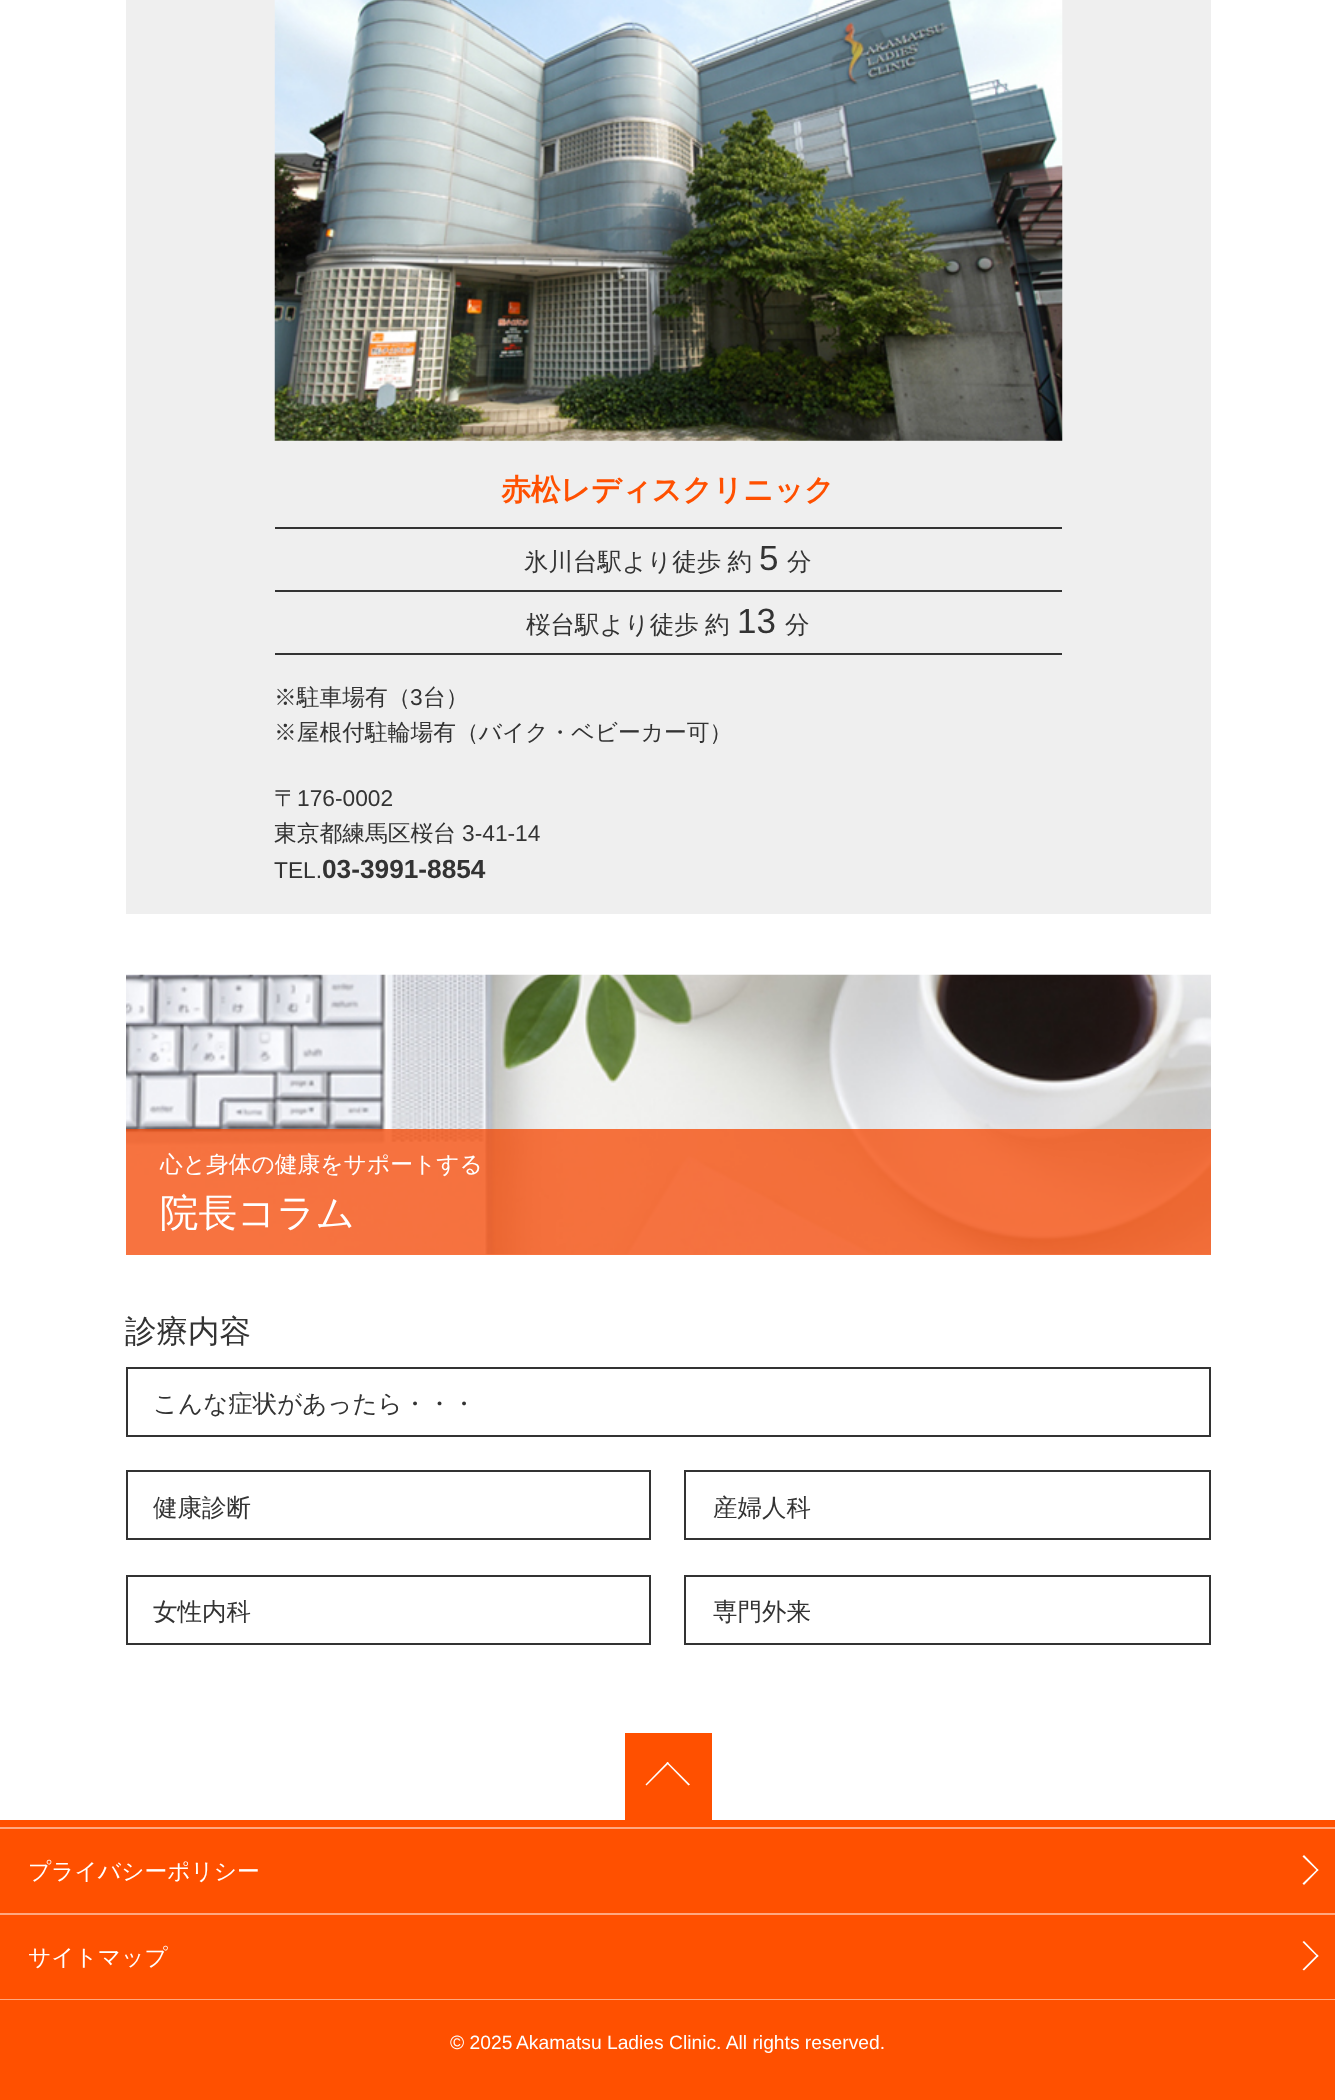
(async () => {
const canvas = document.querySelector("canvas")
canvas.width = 1335
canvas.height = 2100
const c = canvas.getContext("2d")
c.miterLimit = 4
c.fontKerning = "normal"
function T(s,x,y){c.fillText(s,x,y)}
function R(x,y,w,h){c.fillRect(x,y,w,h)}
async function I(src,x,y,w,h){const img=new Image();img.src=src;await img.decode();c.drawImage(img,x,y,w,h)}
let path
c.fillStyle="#fff"
R(0,0,1335,2100)
c.fillStyle="#efefef"
R(126,0,1085,914)
await I("1.png",274,0,789,441)
c.fillStyle="#333"
R(275,527,787,2)
c.font="bold 29.75px WenQuanYi Zen Hei"
c.fillStyle="#ff5000"
T("赤松レディスクリニック",501,500)
c.fillStyle="#333"
R(275,590,787,2)
c.wordSpacing="-1px"
c.font="500 24.5px WenQuanYi Zen Hei"
T("氷川台駅より徒歩 約",524,570)
c.wordSpacing="0px"
c.font="35px Liberation Sans"
T("5",759,570)
c.font="500 24.5px WenQuanYi Zen Hei"
T("分",787,570)
R(275,653,787,2)
c.wordSpacing="-1px"
T("桜台駅より徒歩 約",526,633)
c.wordSpacing="0px"
c.font="35px Liberation Sans"
T("13",737,633)
c.font="500 24.5px WenQuanYi Zen Hei"
T("分",785,633)
c.font="500 22.75px WenQuanYi Zen Hei"
T("※駐車場有（",274,705)
c.font="22.75px Liberation Sans"
T("3",410,705)
c.font="500 22.75px WenQuanYi Zen Hei"
T("台）",423,705)
T("※屋根付駐輪場有（バイク・ベビーカー可）",274,740)
T("〒",274,806)
c.font="22.75px Liberation Sans"
T("176-0002",297,806)
c.font="500 22.75px WenQuanYi Zen Hei"
T("東京都練馬区桜台",274,841)
c.font="22.75px Liberation Sans"
T("3-41-14",462,841)
T("TEL.",274,878)
c.font="bold 26.25px Liberation Sans"
T("03-3991-8854",322,878)
await I("2.png",126,974,1085,281)
c.fillStyle="#f54500bf"
R(126,1129,1085,126)
c.font="500 22.75px WenQuanYi Zen Hei"
c.fillStyle="#fff"
T("心と身体の健康をサポートする",160,1172)
c.font="500 38.5px WenQuanYi Zen Hei"
T("院長コラム",160,1226)
c.font="500 31.5px WenQuanYi Zen Hei"
c.fillStyle="#333"
T("診療内容",125,1342)
c.strokeStyle="#333"
c.lineWidth=2
c.strokeRect(127,1368,1083,68)
c.font="500 24.5px WenQuanYi Zen Hei"
T("こんな症状があったら・・・",153,1412)
c.strokeRect(127,1471,523,68)
T("健康診断",153,1516)
c.strokeRect(685,1471,525,68)
T("産婦人科",713,1516)
c.strokeRect(127,1576,523,68)
T("女性内科",153,1620)
c.strokeRect(685,1576,525,68)
T("専門外来",713,1620)
c.fillStyle="#ff5000"
R(625,1733,87,87)
c.fillStyle="#fff"
path = new Path2D("M645.5 1784.5l22-22.5l1.5 1l-22.5 22.5z")
c.fill(path)
path = new Path2D("M666.5 1763l1-1l22.5 22.5l-1.5 1z")
c.fill(path)
c.fillStyle="#ff5000"
R(0,1820,1335,280)
c.fillStyle="#ffa880"
R(0,1827,1335,2)
R(0,1913,1335,2)
c.font="500 22.75px WenQuanYi Zen Hei"
c.fillStyle="#fff"
T("プライバシーポリシー",28,1879)
path = new Path2D("M1304 1855l14.5 15l-1 1l-15-14.5z")
c.fill(path)
path = new Path2D("M1317.5 1869l1 1l-14.5 15l-1.5-1.5z")
c.fill(path)
c.fillStyle="#ffa880"
R(0,1999,1335,1)
c.fillStyle="#fff"
T("サイトマップ",28,1965)
path = new Path2D("M1304 1941l14.5 15l-1 1l-15-15z")
c.fill(path)
path = new Path2D("M1317.5 1954.5l1 1.5l-14.5 14.5l-1.5-1z")
c.fill(path)
c.font="19.25px Liberation Sans"
T("© 2025",450,2049)
T("Akamatsu Ladies Clinic. All rights reserved.",516,2049)
})()
